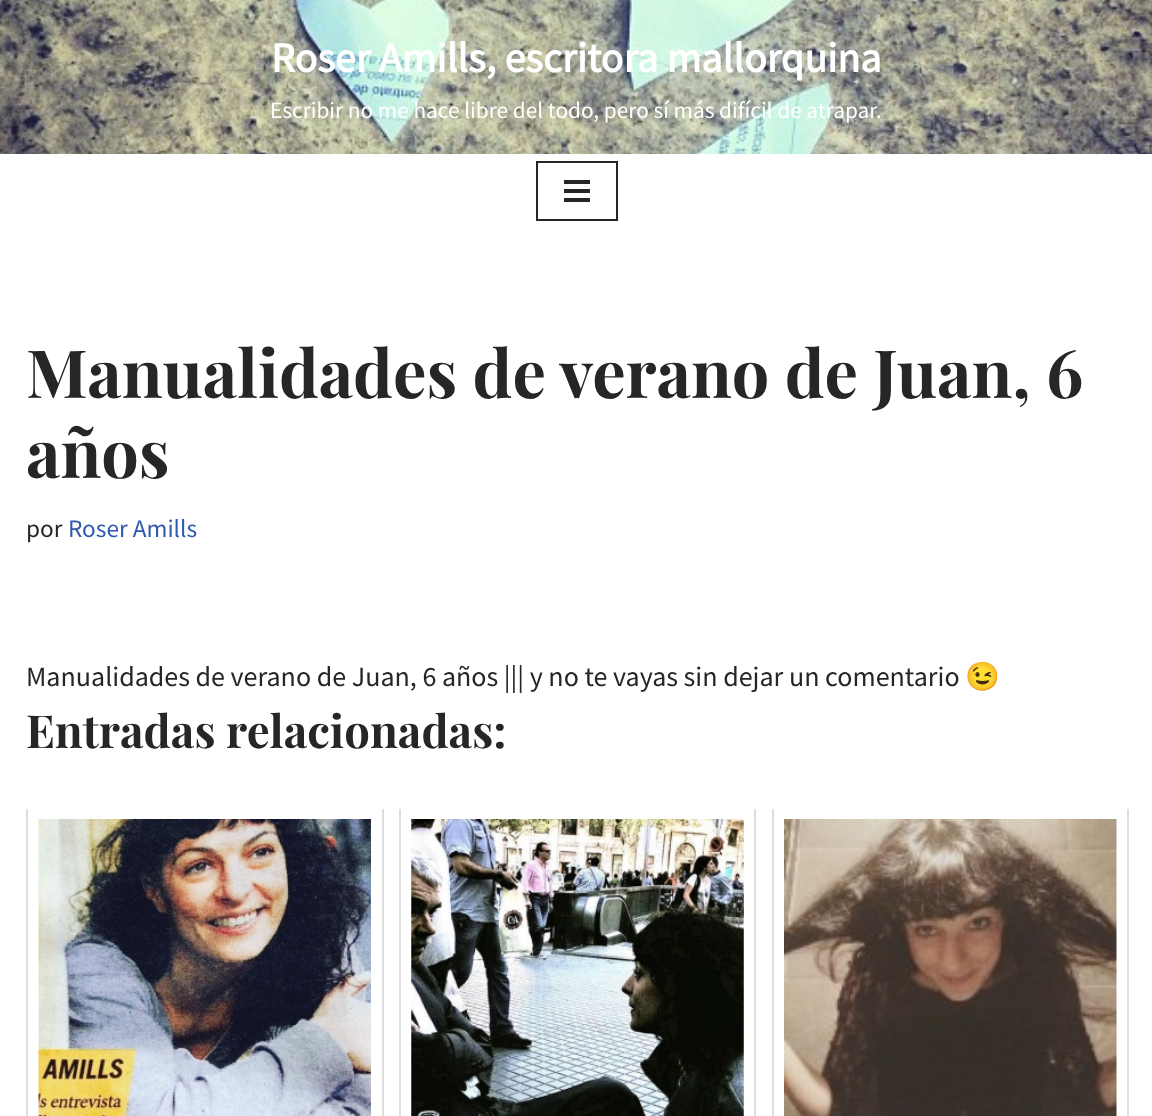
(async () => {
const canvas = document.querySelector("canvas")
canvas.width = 1152
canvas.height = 1116
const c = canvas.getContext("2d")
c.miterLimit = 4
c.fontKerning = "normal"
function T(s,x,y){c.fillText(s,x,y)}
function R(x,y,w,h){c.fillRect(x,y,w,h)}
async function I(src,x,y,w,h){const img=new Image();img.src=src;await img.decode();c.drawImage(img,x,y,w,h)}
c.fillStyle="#fff"
R(0,0,1152,1116)
await I("1.png",0,0,1152,154)
c.font="bold 42px Source Sans Pro"
T("Roser Amills, escritora mallorquina",271,72)
c.font="23.3px Source Sans Pro"
T("Escribir no me hace libre del todo, pero sí más difícil de atrapar.",270,118)
c.strokeStyle="#272626"
c.lineWidth=2
c.strokeRect(537,162,80,58)
c.fillStyle="#272626"
R(564,180,26,4)
R(564,189,26,4)
R(564,198,26,4)
c.font="bold 66.5px Playfair Display"
T("Manualidades de verano de Juan, 6",26,398)
T("años",26,478)
c.font="25.25px Source Sans Pro"
T("por",26,537)
c.fillStyle="#2f5aae"
T("Roser Amills",68,537)
c.font="28px Source Sans Pro"
c.fillStyle="#272626"
T("Manualidades de verano de Juan, 6 años ||| y no te vayas sin dejar un comentario",26,686)
c.font="28px Noto Color Emoji"
T("😉",965,686)
c.font="bold 45.5px Playfair Display"
T("Entradas relacionadas:",26,748)
c.fillStyle="#ddd"
R(382,809,2,307)
R(26,809,2,307)
await I("2.png",38,819,333,297)
R(754,809,2,307)
R(399,809,2,307)
await I("3.png",411,819,333,297)
R(1127,809,2,307)
R(772,809,2,307)
await I("4.png",784,819,333,297)
})()
